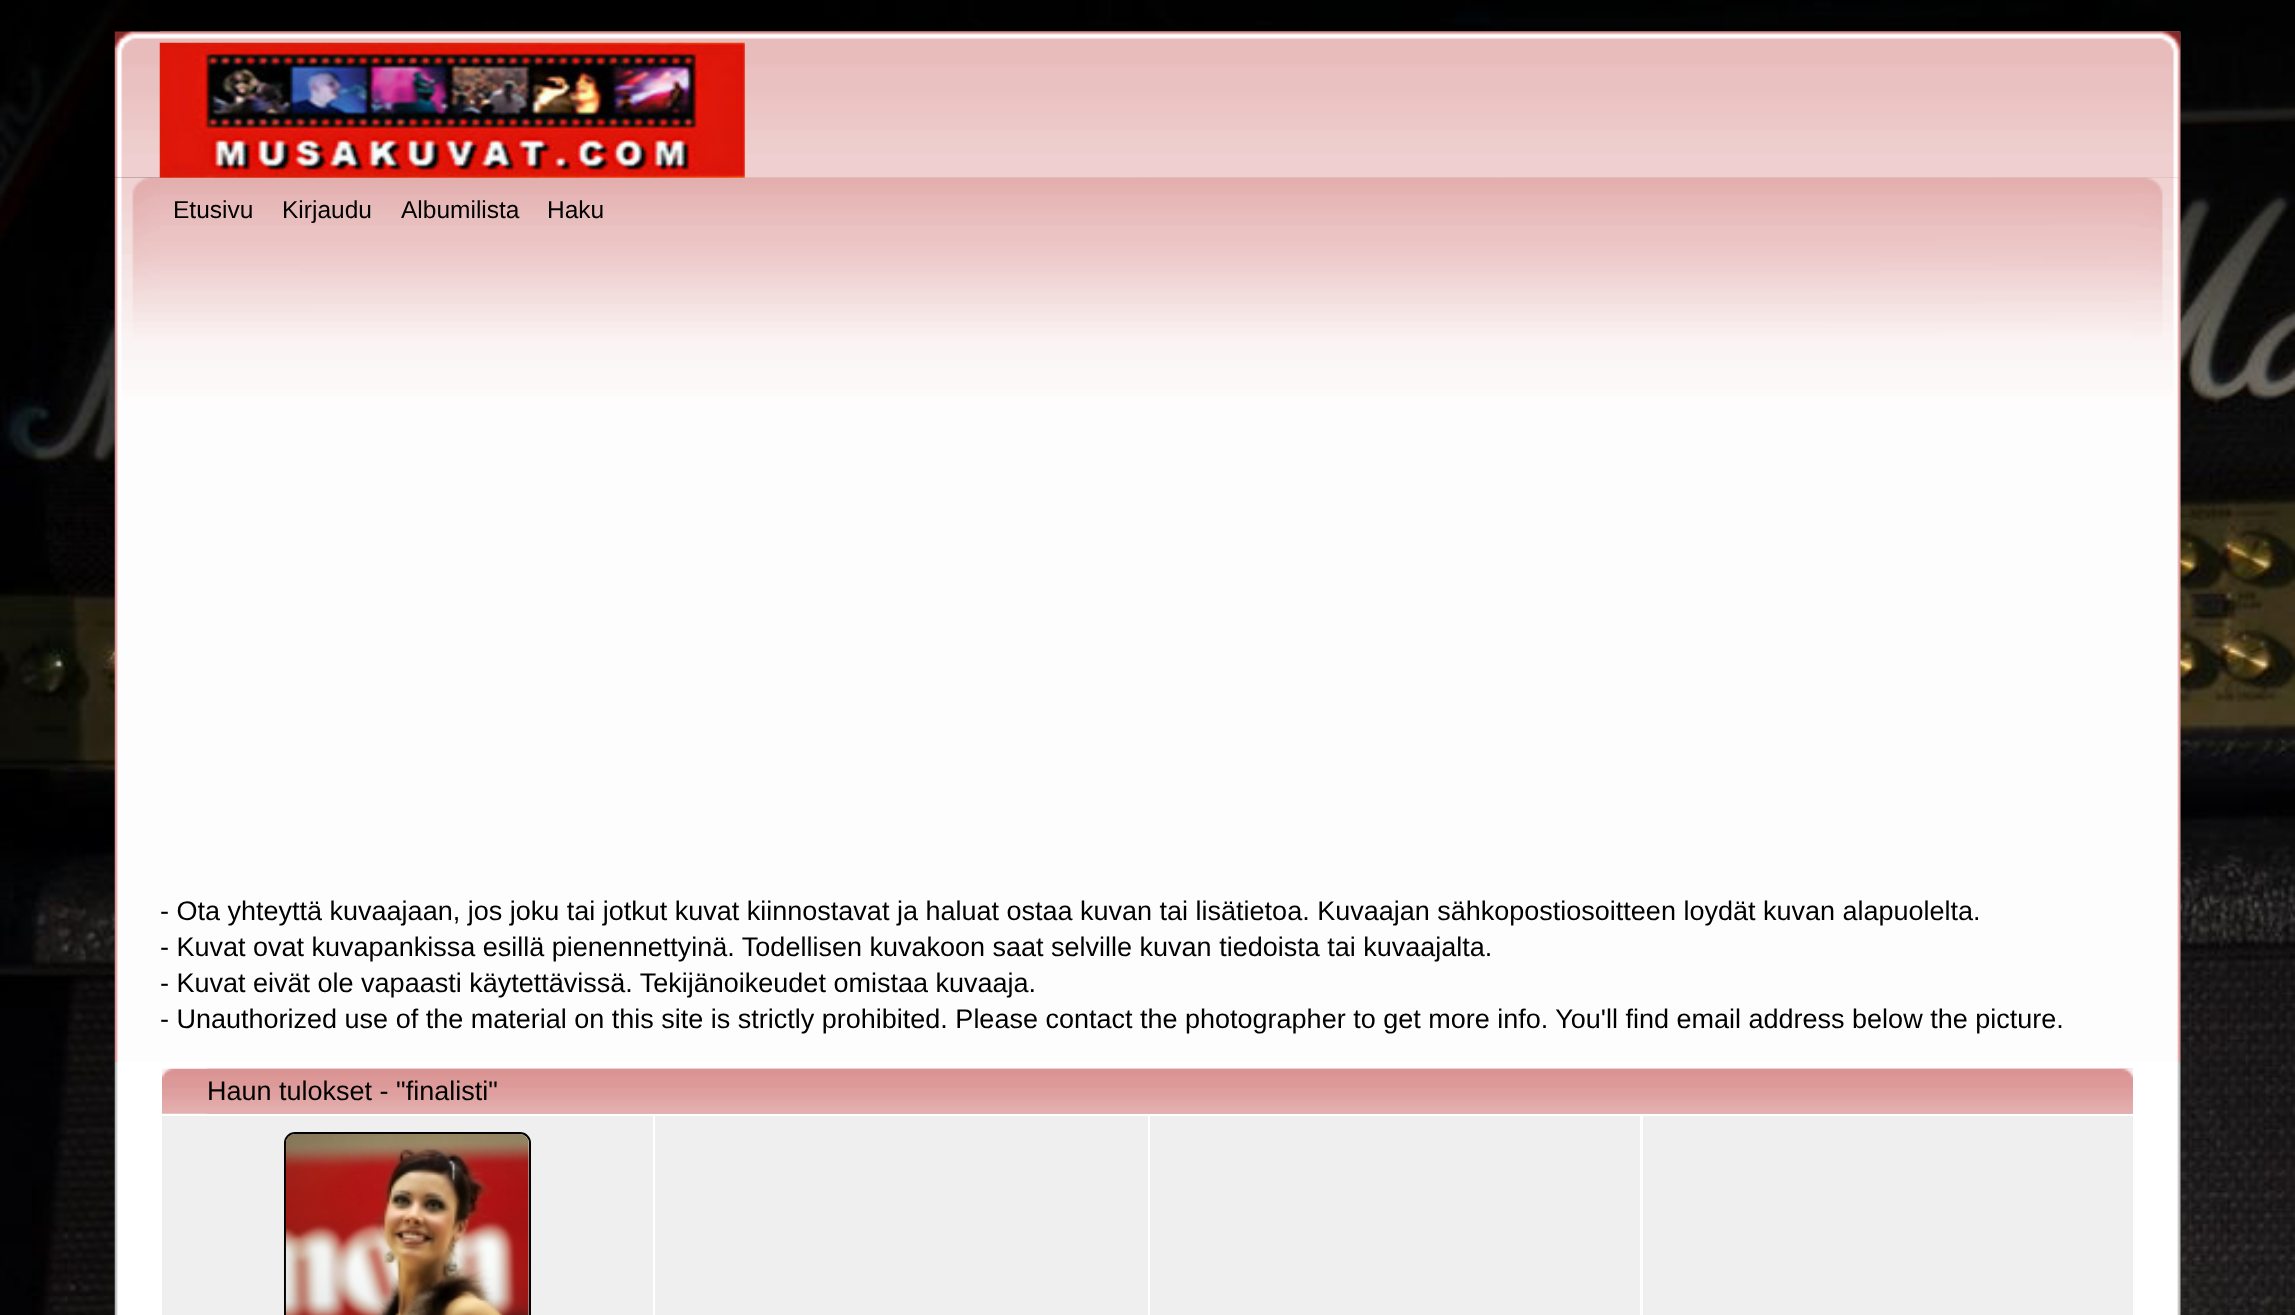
(async () => {
const canvas = document.querySelector("canvas")
canvas.width = 2295
canvas.height = 1315
const c = canvas.getContext("2d")
c.miterLimit = 4
c.fontKerning = "normal"
function T(s,x,y){c.fillText(s,x,y)}
function R(x,y,w,h){c.fillRect(x,y,w,h)}
async function I(src,x,y,w,h){const img=new Image();img.src=src;await img.decode();c.drawImage(img,x,y,w,h)}
c.fillStyle="#fff"
R(0,0,2295,1315)
await I("1.png",0,0,2295,1315)
await I("2.png",114,31,2067,147)
await I("3.png",159,31,2022,147)
await I("5.png",114,177,2067,885)
await I("6.png",160,177,2021,885)
await I("4.png",159,42,586,136)
c.font="24.5px Liberation Sans"
c.fillStyle="#000"
T("Etusivu",173,218)
T("Kirjaudu",282,218)
T("Albumilista",401,218)
T("Haku",547,218)
c.font="27px Liberation Sans"
T("- Ota yhteyttä kuvaajaan, jos joku tai jotkut kuvat kiinnostavat ja haluat ostaa kuvan tai lisätietoa. Kuvaajan sähkopostiosoitteen loydät kuvan alapuolelta.",160,920)
T("- Kuvat ovat kuvapankissa esillä pienennettyinä. Todellisen kuvakoon saat selville kuvan tiedoista tai kuvaajalta.",160,956)
T("- Kuvat eivät ole vapaasti käytettävissä. Tekijänoikeudet omistaa kuvaaja.",160,992)
T("- Unauthorized use of the material on this site is strictly prohibited. Please contact the photographer to get more info. You'll find email address below the picture.",160,1028)
await I("7.png",114,1062,2067,253)
await I("8.png",2177,1062,4,253)
await I("9.png",162,1068,1971,46)
await I("10.png",207,1068,1926,46)
T("Haun tulokset - \"finalisti\"",207,1100)
c.fillStyle="#efefef"
R(162,1116,491,199)
c.beginPath()
c.roundRect(285,1133,245,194,10)
c.strokeStyle="#000"
c.lineWidth=2
c.stroke()
await I("11.png",285,1134,244,181)
R(655,1116,493,199)
R(1150,1116,490,199)
R(1643,1116,490,199)
})()
